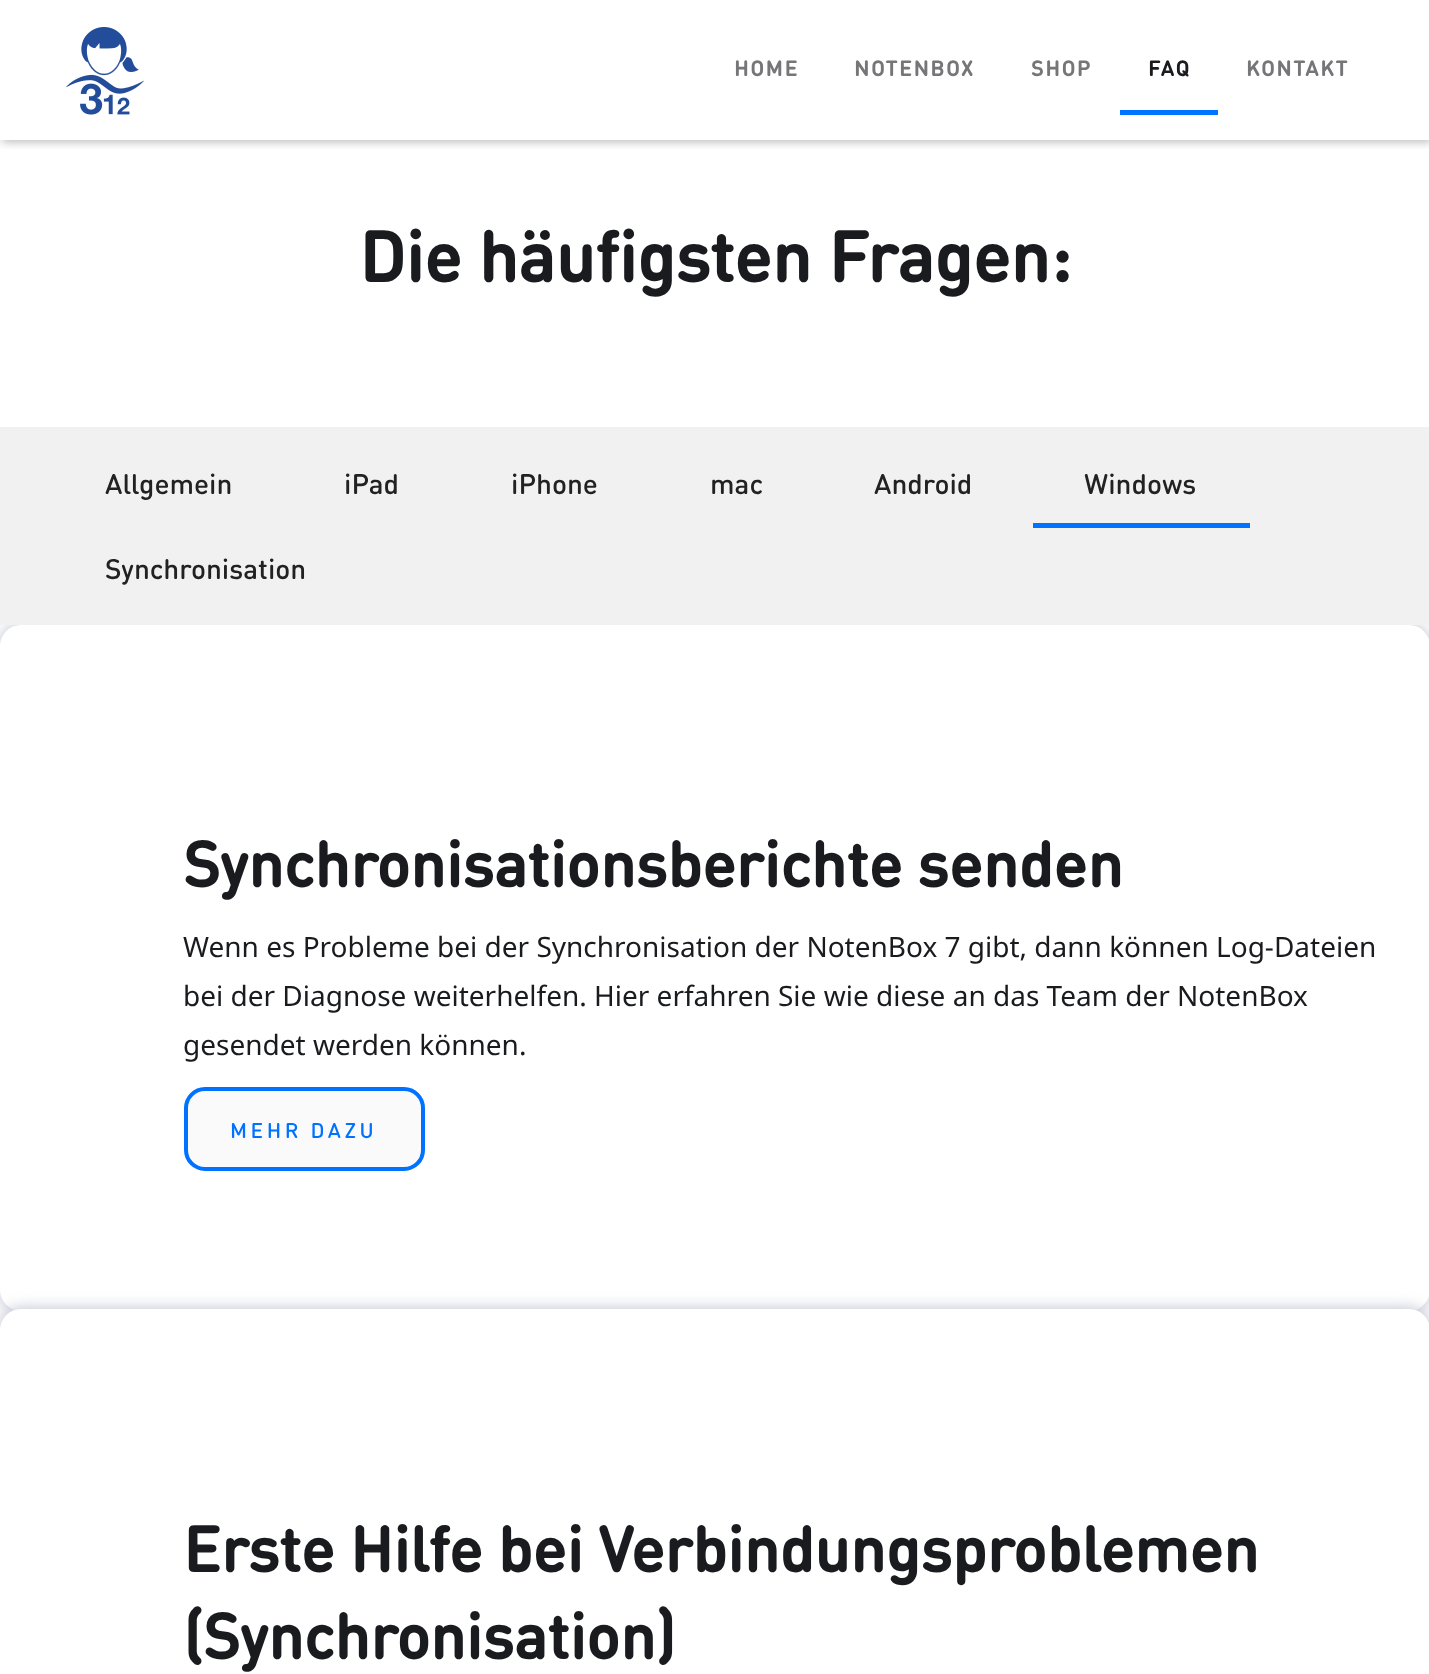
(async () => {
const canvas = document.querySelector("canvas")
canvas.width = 1429
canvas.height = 1674
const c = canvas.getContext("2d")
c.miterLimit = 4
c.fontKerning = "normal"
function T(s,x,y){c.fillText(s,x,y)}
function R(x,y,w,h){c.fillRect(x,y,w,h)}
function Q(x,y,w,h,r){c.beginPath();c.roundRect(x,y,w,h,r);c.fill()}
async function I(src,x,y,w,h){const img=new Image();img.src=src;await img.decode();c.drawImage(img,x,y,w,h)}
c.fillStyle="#fff"
R(0,0,1429,1674)
c.save()
c.beginPath()
c.rect(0,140,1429,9)
c.clip()
c.fillStyle="#00000045"
c.filter="blur(5px)"
c.beginPath()
c.rect(2,2,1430,140)
c.fill()
c.filter="none"
c.restore()
await I("1.png",66,27,78,88)
c.letterSpacing="1.75px"
c.font="bold 21px 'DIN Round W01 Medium'"
c.fillStyle="#767679"
T("HOME",734,76)
T("NOTENBOX",854,76)
T("SHOP",1031,76)
c.fillStyle="#0075ff"
R(1120,110,98,5)
c.fillStyle="#1a1b1f"
T("FAQ",1148,76)
c.fillStyle="#767679"
T("KONTAKT",1246,76)
c.letterSpacing="0px"
c.font="bold 70px 'DIN Round W01 Medium'"
c.fillStyle="#1a1b1f"
T("Die häufigsten Fragen:",359,282)
c.fillStyle="#babece"
c.filter="blur(8px)"
c.beginPath()
c.roundRect(0,625,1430,686,21)
c.fill()
c.filter="none"
c.fillStyle="#f1f1f1"
R(0,427,1429,198)
c.font="500 28px 'DIN Round W01 Medium'"
c.fillStyle="#222"
T("Allgemein",105,494)
T("iPad",344,494)
T("iPhone",511,494)
T("mac",710,494)
T("Android",874,494)
c.fillStyle="#0072ff"
R(1033,523,217,5)
c.fillStyle="#222"
T("Windows",1084,494)
T("Synchronisation",105,579)
c.fillStyle="#fff"
Q(0,625,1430,686,21)
c.font="bold 63px 'DIN Round W01 Medium'"
c.fillStyle="#1a1b1f"
T("Synchronisationsberichte senden",183,887)
c.font="28px Noto Sans"
T("Wenn es Probleme bei der Synchronisation der NotenBox 7 gibt, dann können Log-Dateien",183,957)
T("bei der Diagnose weiterhelfen. Hier erfahren Sie wie diese an das Team der NotenBox",183,1006)
T("gesendet werden können.",183,1055)
c.fillStyle="#fafafa"
c.beginPath()
c.roundRect(186,1089,237,80,19)
c.fill()
c.strokeStyle="#0072ff"
c.lineWidth=4
c.stroke()
c.letterSpacing="3.5px"
c.font="500 21px 'DIN Round W01 Medium'"
c.fillStyle="#0072ff"
T("MEHR DAZU",230,1138)
c.fillStyle="#babece"
c.filter="blur(8px)"
c.beginPath()
c.roundRect(0,1309,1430,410,21)
c.fill()
c.filter="none"
c.fillStyle="#fff"
Q(0,1309,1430,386,21)
c.letterSpacing="0px"
c.font="bold 63px 'DIN Round W01 Medium'"
c.fillStyle="#1a1b1f"
T("Erste Hilfe bei Verbindungsproblemen",183,1572)
T("(Synchronisation)",183,1659)
})()
